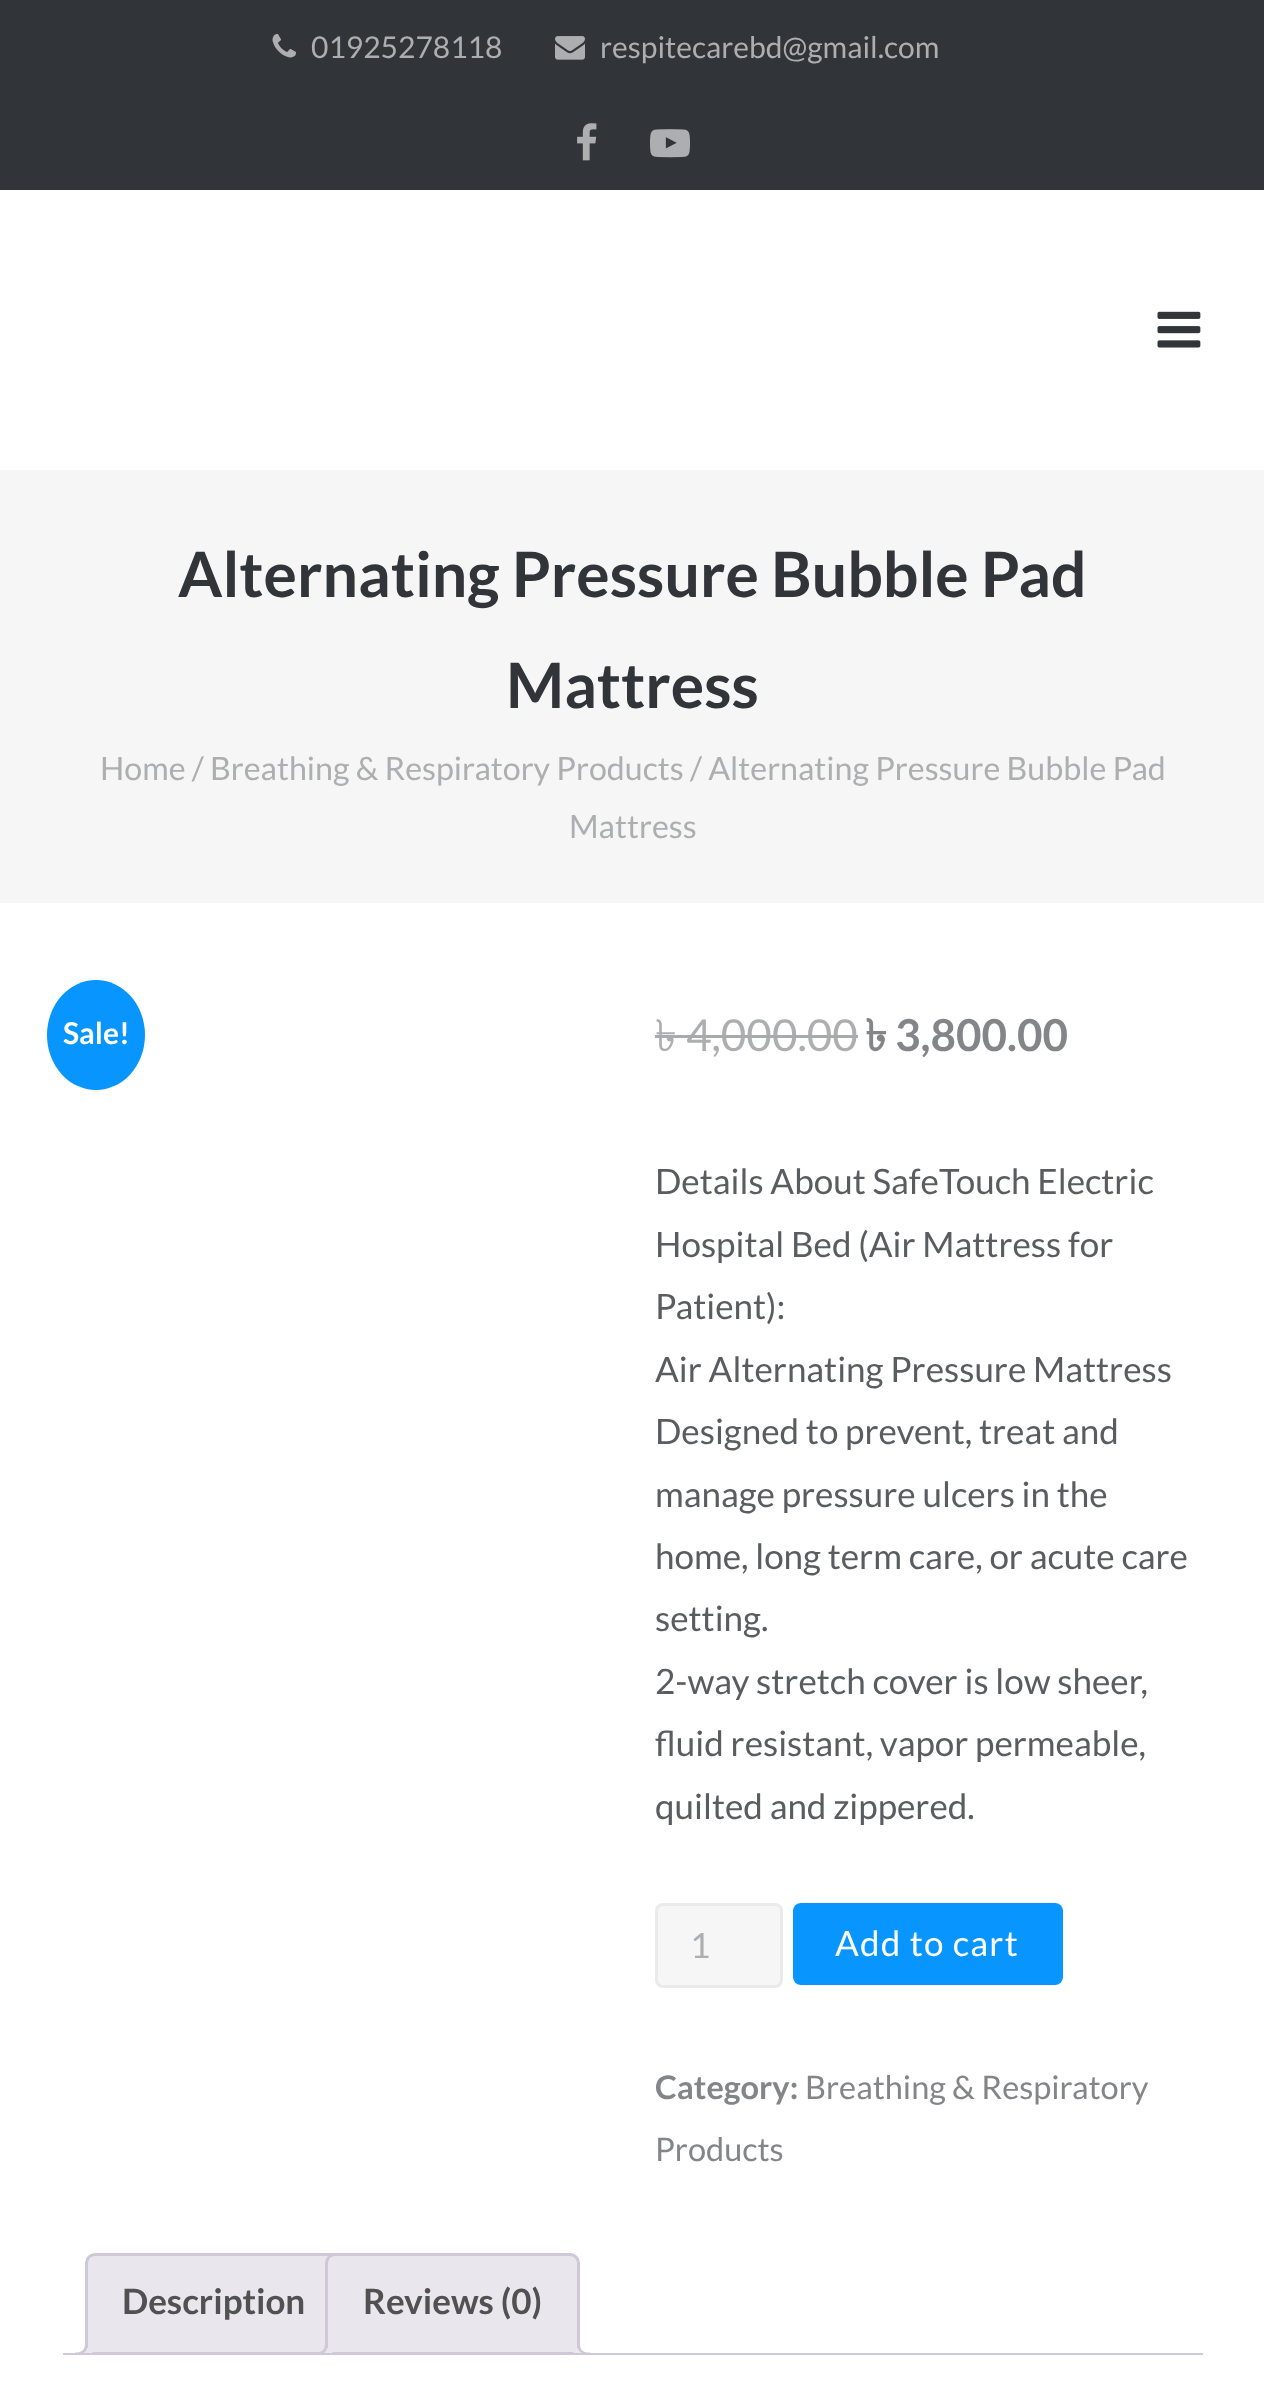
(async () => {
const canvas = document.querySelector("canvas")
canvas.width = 1264
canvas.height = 2399
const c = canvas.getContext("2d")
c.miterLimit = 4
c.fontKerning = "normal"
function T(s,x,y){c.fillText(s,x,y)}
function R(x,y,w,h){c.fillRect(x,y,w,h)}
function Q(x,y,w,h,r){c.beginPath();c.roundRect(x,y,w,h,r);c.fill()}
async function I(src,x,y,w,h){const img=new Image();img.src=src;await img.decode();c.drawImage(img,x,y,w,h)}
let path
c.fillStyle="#fff"
R(0,0,1264,2399)
c.fillStyle="#313539"
R(0,0,1264,190)
await I("1.png",272,33,24,25)
c.font="30px Lato"
c.fillStyle="#acaeaf"
T("01925278118",311,58)
await I("2.png",555,36,30,24)
T("respitecarebd@gmail.com",600,58)
await I("3.png",577,123,20,38)
await I("4.png",650,129,40,29)
await I("5.png",1157,311,44,37)
c.fillStyle="#f6f6f7"
R(0,470,1264,433)
c.font="bold 62.5px Lato"
c.fillStyle="#313539"
T("Alternating Pressure Bubble Pad",178,597)
T("Mattress",506,708)
c.font="32.2px Lato"
c.fillStyle="#acaeaf"
T("Home / Breathing & Respiratory Products / Alternating Pressure Bubble Pad",100,780)
T("Mattress",569,838)
c.fillStyle="#0896fe"
c.beginPath()
c.ellipse(96,1035,49,55,0,0,7)
c.fill()
c.font="bold 30px Lato"
c.fillStyle="#fff"
T("Sale!",63,1044)
c.font="44px Lohit Bengali"
c.fillStyle="#acaeaf"
T("৳",655,1051)
c.fillStyle="#a8aaac"
R(655,1035,30,3)
c.font="44px Lato"
c.fillStyle="#acaeaf"
T("4,000.00",686,1051)
c.fillStyle="#a8aaac"
R(685,1035,173,3)
c.font="bold 44px Lohit Bengali"
c.fillStyle="#838588"
T("৳",865,1051)
c.font="bold 44px Lato"
T("3,800.00",895,1051)
c.font="35px Lato"
c.fillStyle="#5a5d60"
T("Details About SafeTouch Electric",655,1194)
T("Hospital Bed (Air Mattress for",655,1257)
T("Patient):",655,1319)
T("Air Alternating Pressure Mattress",655,1382)
T("Designed to prevent, treat and",655,1444)
T("manage pressure ulcers in the",655,1507)
T("home, long term care, or acute care",655,1569)
T("setting.",655,1631)
T("2-way stretch cover is low sheer,",655,1694)
T("fluid resistant, vapor permeable,",655,1756)
T("quilted and zippered.",655,1819)
c.fillStyle="#f6f6f7"
c.beginPath()
c.roundRect(656.5,1904.5,125,82,6.5)
c.fill()
c.strokeStyle="#eaeaeb"
c.lineWidth=3
c.stroke()
c.fillStyle="#acaeaf"
T("1",690,1958)
c.fillStyle="#0896fe"
Q(793,1903,270,82,8)
c.letterSpacing="1.25px"
c.fillStyle="#fff"
T("Add to cart",835,1956)
c.letterSpacing="0px"
c.font="bold 32.5px Lato"
c.fillStyle="#838588"
T("Category:",655,2099)
c.font="32.5px Lato"
T("Breathing & Respiratory",805,2099)
T("Products",655,2161)
c.fillStyle="#e9e6ed"
c.beginPath()
c.roundRect(86.5,2254.5,255,99,[8.5,8.5,0,0])
c.fill()
c.strokeStyle="#cfc8d8"
c.stroke()
c.font="bold 35px Lato"
c.fillStyle="#515151"
T("Description",122,2314)
c.save()
c.beginPath()
c.rect(63,2253,1140,102)
c.clip()
c.fillStyle="#e9e6ed"
path = new Path2D("M80 2354.5v5.5h5c6-1.5 8-6.5 8-12h-6c-1 3.5-3.5 6-7 6.5z")
c.fill(path)
c.restore()
c.fillStyle="#cfc8d8"
path = new Path2D("M75 2342.5h12.5c0 9-3.5 12.5-12.5 12.5zm0 0h10c0 7.5-2.5 10-10 10z")
c.fill(path,"evenodd")
c.fillStyle="#e9e6ed"
c.beginPath()
c.roundRect(326.5,2254.5,252,99,[8.5,8.5,0,0])
c.fill()
c.stroke()
c.fillStyle="#515151"
T("Reviews (0)",363,2314)
c.save()
c.beginPath()
c.rect(63,2253,1140,102)
c.clip()
c.fillStyle="#e9e6ed"
path = new Path2D("M320 2354.5v5.5h5c6-1.5 8-6.5 8-12h-6c-1 3.5-3.5 6-7 6.5z")
c.fill(path)
c.restore()
c.fillStyle="#cfc8d8"
path = new Path2D("M315 2342.5h12.5c0 9-3.5 12.5-12.5 12.5zm0 0h10c0 7.5-2.5 10-10 10z")
c.fill(path,"evenodd")
c.save()
c.beginPath()
c.rect(63,2253,1140,102)
c.clip()
c.fillStyle="#e9e6ed"
path = new Path2D("M573 2348c0 8.5 3.5 12 12 12v-5.5c-3.5-.5-6-3-7-6.5z")
c.fill(path)
c.restore()
path = new Path2D("M577.5 2342.5h12.5v12.5h-2.5c-5.5 0-10-4.5-10-10zm2.5 0h10v10h-2.5c-4 0-7.5-3.5-7.5-7.5z")
c.fill(path,"evenodd")
R(63,2353,1140,2)
})()
